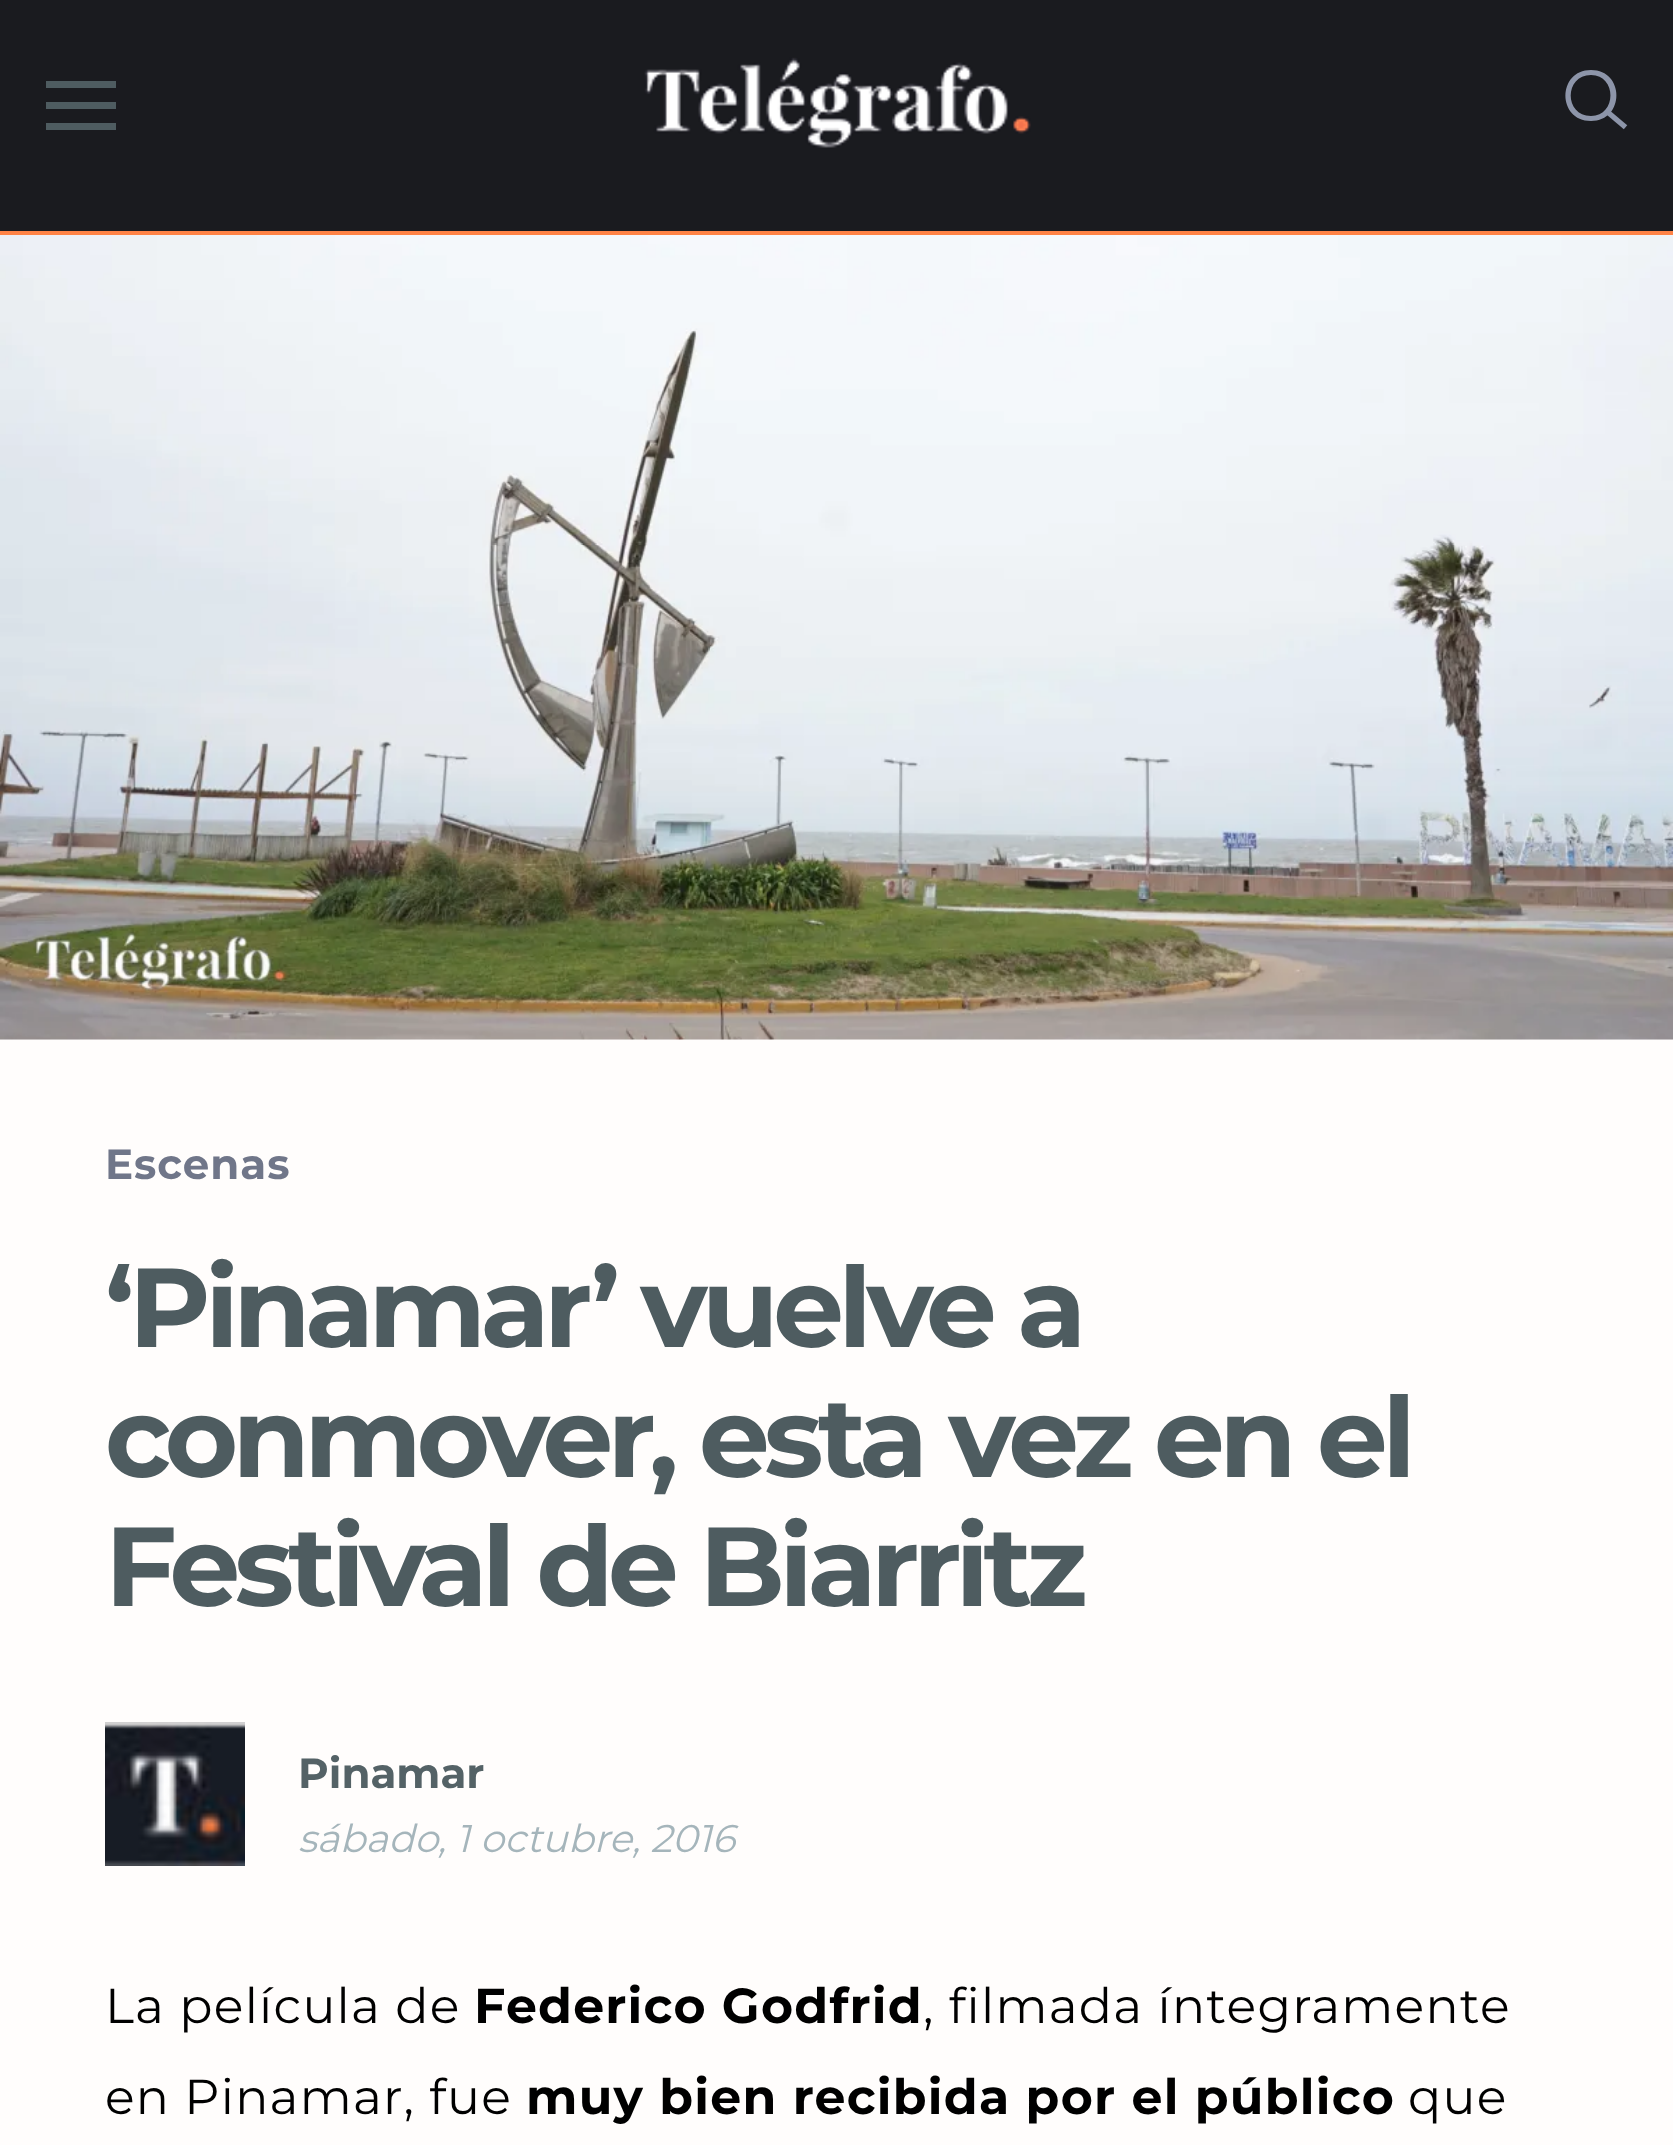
(async () => {
const canvas = document.querySelector("canvas")
canvas.width = 1673
canvas.height = 2145
const c = canvas.getContext("2d")
c.miterLimit = 4
c.fontKerning = "normal"
function T(s,x,y){c.fillText(s,x,y)}
function R(x,y,w,h){c.fillRect(x,y,w,h)}
async function I(src,x,y,w,h){const img=new Image();img.src=src;await img.decode();c.drawImage(img,x,y,w,h)}
let path
c.fillStyle="#fffdfc"
R(0,0,1673,2145)
c.fillStyle="#1a1b1f"
R(0,0,1673,231)
c.fillStyle="#ff8346"
R(0,231,1673,4)
c.fillStyle="#4e5c60"
R(46,81,70,7)
R(46,102,70,7)
R(46,123,70,7)
await I("1.png",644,57,387,91)
c.fillStyle="#8d95a9"
path = new Path2D("M1591 75c26 0 26 41 0 41c-27 0-27-41 0-41m0-5c-34 0-34 51 0 51c34 0 34-51 0-51z")
c.fill(path)
path = new Path2D("M1607.5 112l16 13.5")
c.strokeStyle="#8d95a9"
c.lineWidth=5.3
c.lineCap="square"
c.lineJoin="round"
c.stroke(path)
await I("2.png",0,235,1673,805)
c.letterSpacing="1px"
c.font="bold 42px Montserrat"
c.fillStyle="#707689"
T("Escenas",105,1179)
c.letterSpacing="-5.6px"
c.font="bold 112px Montserrat"
c.fillStyle="#4e5c60"
T("‘Pinamar’ vuelve a",105,1347)
T("conmover, esta vez en el",105,1477)
T("Festival de Biarritz",105,1606)
await I("3.png",105,1722,140,144)
c.letterSpacing="0px"
c.font="bold 42px Montserrat"
c.fillStyle="#546266"
T("Pinamar",298,1788)
c.font="italic 38.5px Montserrat"
c.fillStyle="#a5b5bb"
T("sábado, 1 octubre, 2016",298,1852)
c.letterSpacing="1.25px"
c.font="49px Montserrat"
c.fillStyle="#000"
T("La película de",105,2023)
c.font="bold 49px Montserrat"
T("Federico Godfrid",474,2023)
c.font="49px Montserrat"
T(", filmada íntegramente",923,2023)
T("en Pinamar, fue",105,2114)
c.font="bold 49px Montserrat"
T("muy bien recibida por el público",526,2114)
c.font="49px Montserrat"
T("que",1408,2114)
})()
